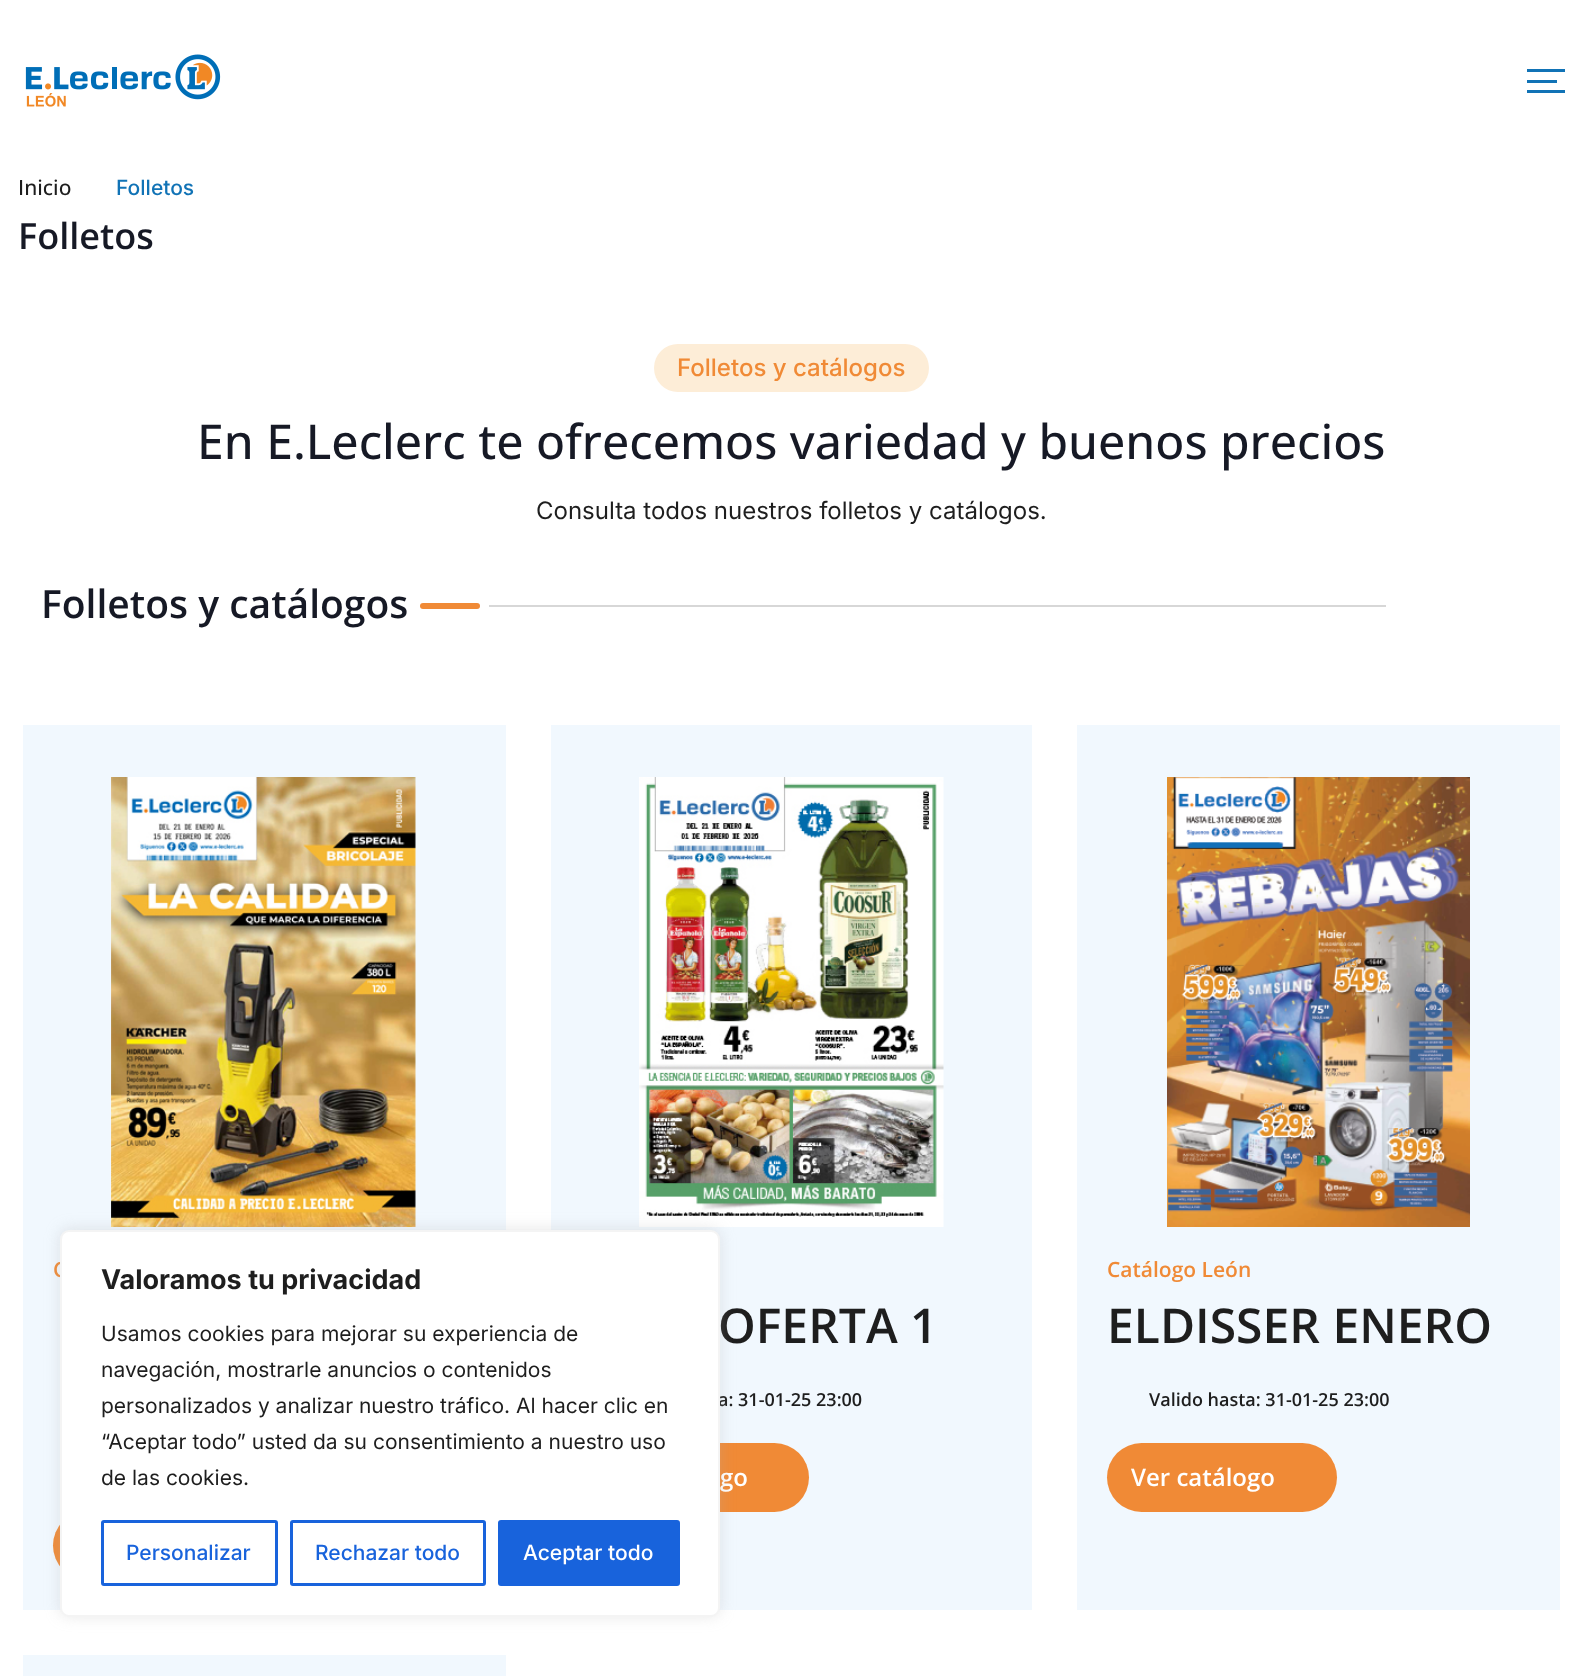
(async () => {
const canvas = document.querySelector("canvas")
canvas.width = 1582
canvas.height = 1676
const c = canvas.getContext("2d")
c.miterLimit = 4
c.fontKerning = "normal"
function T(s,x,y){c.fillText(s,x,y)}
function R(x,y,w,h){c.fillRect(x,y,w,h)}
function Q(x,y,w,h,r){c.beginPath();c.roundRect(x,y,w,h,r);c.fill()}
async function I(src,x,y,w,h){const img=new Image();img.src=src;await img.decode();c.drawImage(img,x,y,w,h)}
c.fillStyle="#fff"
R(0,0,1582,1676)
await I("1.png",25,54,196,53)
c.fillStyle="#1173b6"
R(1527,69,38,3)
R(1527,80,30,3)
R(1527,90,38,3)
c.font="500 21px Open Sans"
c.fillStyle="#1e1e1e"
T("Inicio",18,195)
c.font="500 21px Inter"
c.fillStyle="#1173b6"
T("Folletos",116,195)
c.font="600 36px Open Sans"
c.fillStyle="#161925"
T("Folletos",18,249)
c.fillStyle="#fdedd7"
Q(654,344,275,48,24)
c.font="500 24px Inter"
c.fillStyle="#f08a36"
T("Folletos y catálogos",677,376)
c.font="500 48px Open Sans"
c.fillStyle="#161925"
T("En E.Leclerc te ofrecemos variedad y buenos precios",197,459)
c.font="24px Inter"
c.fillStyle="#1e1e1e"
T("Consulta todos nuestros folletos y catálogos.",536,519)
c.font="600 39px Open Sans"
c.fillStyle="#161925"
T("Folletos y catálogos",41,618)
c.fillStyle="#f08a36"
Q(420,603,60,6,3)
c.fillStyle="#d7d7d7"
R(489,605,897,2)
c.fillStyle="#f1f8fe"
R(23,725,483,885)
await I("2.png",111,777,305,450)
c.font="600 21px Open Sans"
c.fillStyle="#f08a36"
T("C",53,1277)
Q(53,1511,228,69,34.5)
c.fillStyle="#f1f8fe"
R(1077,725,483,885)
await I("3.png",1167,777,303,450)
c.fillStyle="#f08a36"
T("Catálogo León",1107,1277)
c.font="600 48px Open Sans"
c.fillStyle="#1e1e1e"
T("ELDISSER ENERO",1107,1343)
c.font="600 18px Open Sans"
T("Valido hasta: 31-01-25 23:00",1149,1406)
c.fillStyle="#f08a36"
Q(1107,1443,230,69,34.5)
c.font="600 24px Open Sans"
c.fillStyle="#fff"
T("Ver catálogo",1131,1486)
c.fillStyle="#f1f8fe"
R(551,725,481,885)
await I("4.png",639,777,305,450)
c.font="600 48px Open Sans"
c.fillStyle="#1e1e1e"
T("OFERTA 1",718,1343)
c.font="600 18px Open Sans"
T("a: 31-01-25 23:00",718,1406)
c.fillStyle="#f08a36"
Q(581,1443,228,69,34.5)
c.font="600 24px Open Sans"
c.fillStyle="#fff"
T("go",720,1486)
c.fillStyle="#f1f8fe"
R(23,1655,483,21)
c.fillStyle="#acabab4d"
c.filter="blur(7.5px)"
c.beginPath()
c.roundRect(60,1229,660,387,9)
c.fill()
c.filter="none"
c.fillStyle="#fff"
c.beginPath()
c.roundRect(61,1231,658,385,8)
c.fill()
c.strokeStyle="#f4f4f4"
c.lineWidth=2
c.stroke()
c.font="bold 27px Inter"
c.fillStyle="#1e1e1e"
T("Valoramos tu privacidad",101,1289)
c.font="21px Inter"
T("Usamos cookies para mejorar su experiencia de",101,1341)
T("navegación, mostrarle anuncios o contenidos",101,1377)
T("personalizados y analizar nuestro tráfico. Al hacer clic en",101,1413)
T("“Aceptar todo” usted da su consentimiento a nuestro uso",101,1449)
T("de las cookies.",101,1485)
c.beginPath()
c.roundRect(102.5,1521.5,174,63,1.5)
c.strokeStyle="#1863dc"
c.lineWidth=3
c.stroke()
c.font="500 21px Inter"
c.fillStyle="#1863dc"
T("Personalizar",126,1560)
c.beginPath()
c.roundRect(291.5,1521.5,193,63,1.5)
c.stroke()
T("Rechazar todo",315,1560)
c.beginPath()
c.roundRect(499.5,1521.5,179,63,1.5)
c.fill()
c.stroke()
c.fillStyle="#fff"
T("Aceptar todo",523,1560)
})()
